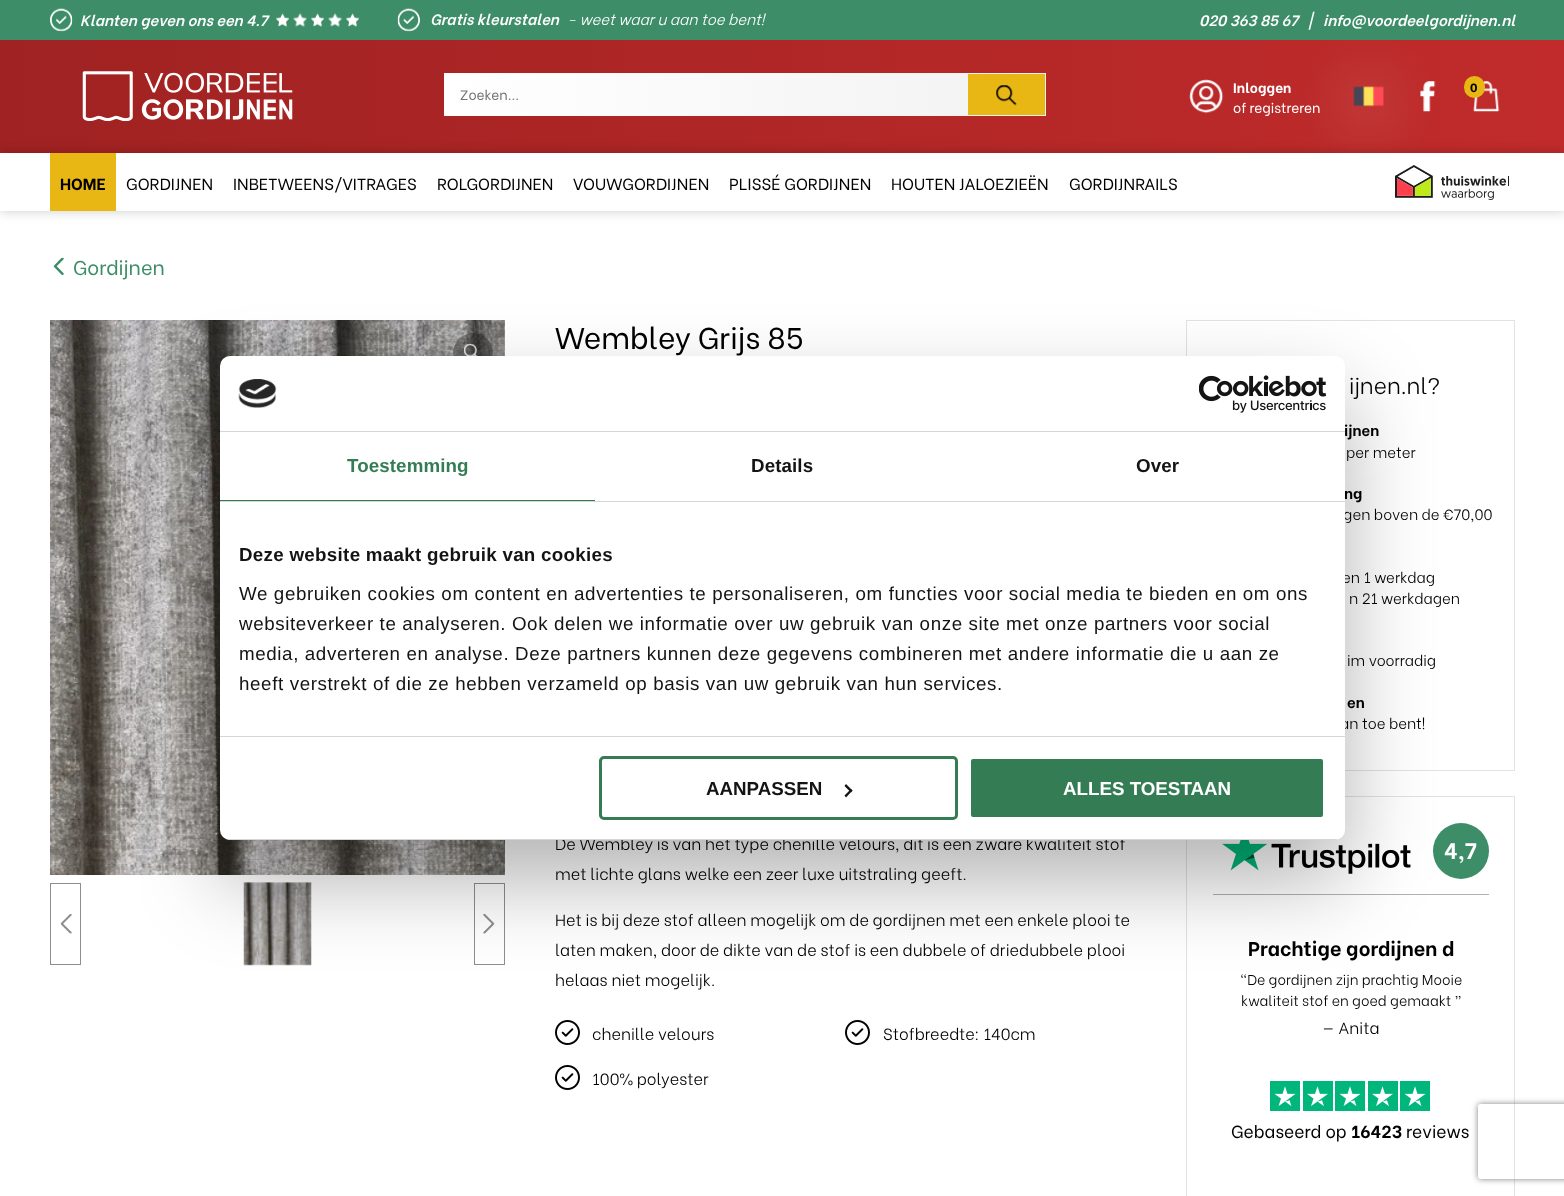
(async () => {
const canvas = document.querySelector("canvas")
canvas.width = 1564
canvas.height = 1196
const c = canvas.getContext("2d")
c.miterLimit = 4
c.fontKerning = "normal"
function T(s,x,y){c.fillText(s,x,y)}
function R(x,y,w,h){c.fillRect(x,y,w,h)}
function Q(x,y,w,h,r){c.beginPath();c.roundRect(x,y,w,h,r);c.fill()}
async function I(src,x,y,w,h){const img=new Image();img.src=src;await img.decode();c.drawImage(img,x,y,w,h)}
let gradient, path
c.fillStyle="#fff"
R(0,0,1564,1196)
c.fillStyle="#3c8d68"
R(0,0,1564,40)
await I("1.png",50,8,23,24)
c.font="italic 600 15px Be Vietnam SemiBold"
c.fillStyle="#fff"
T("Klanten geven ons een 4.7",80,26)
await I("2.png",276,13,13,14)
await I("3.png",293,13,14,14)
await I("2.png",311,13,13,14)
await I("4.png",328,13,14,14)
await I("2.png",346,13,13,14)
await I("5.png",397,8,23,24)
T("Gratis kleurstalen",430,25)
c.font="italic 300 15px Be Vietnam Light"
T("- weet waar u aan toe bent!",567,25)
c.font="italic 600 15px Be Vietnam SemiBold"
T("020 363 85 67",1199,26)
T("|",1308,26)
T("info@voordeelgordijnen.nl",1323,26)
gradient = c.createLinearGradient(0,96,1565,96)
gradient.addColorStop(0,"#a02222")
gradient.addColorStop(1,"#c12b2b")
c.fillStyle = gradient
R(0,40,1564,113)
c.save()
path = new Path2D("M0 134h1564v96h-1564zm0 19h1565v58h-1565z")
c.clip(path,"evenodd")
c.fillStyle="#00000033"
c.filter="blur(6px)"
c.beginPath()
c.rect(0,153,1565,58)
c.fill()
c.filter="none"
c.restore()
gradient = c.createLinearGradient(444,94,1046,94)
gradient.addColorStop(0,"#fff")
gradient.addColorStop(1,"#f2f2f2")
c.fillStyle = gradient
R(444,73,602,43)
c.font="13.75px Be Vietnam"
c.fillStyle="#757575"
T("Zoeken...",460,100)
c.fillStyle="#e8b713"
R(968,74,77,41)
await I("6.png",996,85,21,21)
R(50,153,66,58)
c.font="bold 16.25px Be Vietnam"
c.fillStyle="#000"
T("HOME",60,190)
c.font="16.25px Be Vietnam"
T("GORDIJNEN",126,190)
T("INBETWEENS/VITRAGES",233,190)
T("ROLGORDIJNEN",437,190)
T("VOUWGORDIJNEN",573,190)
T("PLISSÉ GORDIJNEN",729,190)
T("HOUTEN JALOEZIEËN",891,190)
T("GORDIJNRAILS",1069,190)
await I("7.png",1395,165,114,35)
await I("8.png",82,71,211,50)
await I("9.png",1189,79,35,35)
c.font="bold 13.75px Be Vietnam"
c.fillStyle="#fff"
T("Inloggen",1233,93)
c.font="13.75px Be Vietnam"
T("of registreren",1233,113)
c.filter="blur(31px)"
c.beginPath()
c.rect(1358,93,18,18)
c.fill()
c.filter="none"
await I("10.png",1353,86,31,21)
await I("11.png",1420,81,16,31)
await I("12.png",1473,81,27,31)
c.fillStyle="#e8b713"
Q(1464,76,21,22,10.5)
c.font="bold 12px Be Vietnam"
c.fillStyle="#000"
T("0",1470,92)
await I("13.png",53,257,11,18)
c.font="20px Be Vietnam"
c.fillStyle="#3c8d68"
T("Gordijnen",73,275)
await I("14.png",50,320,455,555)
c.fillStyle="#0000004d"
c.beginPath()
c.arc(473,353,20,0,7)
c.fill()
await I("15.png",464,344,14,12)
await I("16.png",504,320,1,555)
c.strokeStyle="#8e8e8e"
c.strokeRect(50.5,883.5,30,81)
await I("17.png",60,914,12,20)
c.strokeRect(474.5,883.5,30,81)
await I("18.png",483,914,12,20)
await I("19.png",243,882,69,84)
c.font="30px Be Vietnam"
c.fillStyle="#000"
T("Wembley Grijs 85",555,349)
c.font="300 16.25px Be Vietnam Light"
T("De Wembley is van het type chenille velours, dit is een zware kwaliteit stof",555,850)
T("met lichte glans welke een zeer luxe uitstraling geeft.",555,880)
T("Het is bij deze stof alleen mogelijk om de gordijnen met een enkele plooi te",555,926)
T("laten maken, door de dikte van de stof is een dubbele of driedubbele plooi",555,956)
T("helaas niet mogelijk.",555,986)
await I("20.png",555,1020,25,25)
T("chenille velours",592,1040)
await I("20.png",845,1020,25,25)
T("Stofbreedte: 140cm",883,1040)
await I("20.png",555,1065,25,25)
T("100% polyester",592,1085)
c.strokeStyle="#e2e2e2"
c.strokeRect(1186.5,320.5,328,450)
c.font="300 22.5px Be Vietnam Light"
T("ijnen.nl?",1349,394)
c.font="bold 15px Be Vietnam"
T("ijnen",1344,436)
c.font="300 15px Be Vietnam Light"
T("per meter",1346,458)
c.font="bold 15px Be Vietnam"
T("ng",1344,499)
c.font="300 15px Be Vietnam Light"
T("gen boven de €70,00",1343,520)
T("en 1 werkdag",1342,583)
T("n 21 werkdagen",1349,604)
T("im voorradig",1347,666)
c.font="bold 15px Be Vietnam"
T("en",1347,708)
c.font="300 15px Be Vietnam Light"
T("an toe bent!",1340,729)
c.strokeRect(1186.5,796.5,328,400)
c.fillStyle="#b1b1b1"
R(1213,894,276,1)
await I("21.png",1222,840,189,34)
c.fillStyle="#3c8d68"
c.beginPath()
c.arc(1461,851,28,0,7)
c.fill()
c.font="bold 22.5px Be Vietnam"
c.fillStyle="#fff"
T("4,7",1444,859)
c.font="bold 20px Be Vietnam"
c.fillStyle="#000"
T("Prachtige gordijnen d",1248,956)
c.font="300 14.25px Be Vietnam Light"
T("“De gordijnen zijn prachtig Mooie",1240,985)
T("kwaliteit stof en goed gemaakt ”",1241,1006)
c.font="300 16.25px Be Vietnam Light"
T("— Anita",1322,1034)
await I("22.png",1270,1081,160,30)
c.font="17.5px Be Vietnam"
T("Gebaseerd op",1231,1138)
c.font="bold 17.5px Be Vietnam"
T("16423",1351,1138)
c.font="17.5px Be Vietnam"
T("reviews",1406,1138)
c.fillStyle="#0000004d"
c.filter="blur(42.5px)"
c.beginPath()
c.roundRect(220,396,1125,484,10)
c.fill()
c.filter="none"
c.fillStyle="#fff"
Q(220,356,1125,484,10)
c.fillStyle="#d6d6d6"
R(220,431,1125,1)
await I("23.png",238,379,39,29)
await I("24.png",1199,375,127,38)
R(220,501,1125,1)
c.fillStyle="#347d54"
R(220,500,375,1)
c.letterSpacing="0.1px"
c.font="bold 18.75px Liberation Sans"
T("Toestemming",347,472)
c.fillStyle="#141414"
T("Details",751,472)
T("Over",1136,472)
c.fillStyle="#d6d6d6"
R(220,736,1125,1)
c.letterSpacing="0.3px"
c.fillStyle="#141414"
T("Deze website maakt gebruik van cookies",239,561)
c.letterSpacing="0.62px"
c.font="18.75px Liberation Sans"
T("We gebruiken cookies om content en advertenties te personaliseren, om functies voor social media te bieden en om ons",239,600)
T("websiteverkeer te analyseren. Ook delen we informatie over uw gebruik van onze site met onze partners voor social",239,630)
T("media, adverteren en analyse. Deze partners kunnen deze gegevens combineren met andere informatie die u aan ze",239,660)
T("heeft verstrekt of die ze hebben verzameld op basis van uw gebruik van hun services.",239,690)
c.save()
c.beginPath()
c.roundRect(220,356,1125,484,10)
c.clip()
c.fillStyle="#d6d6d6"
R(220,839,1125,1)
c.restore()
c.beginPath()
c.roundRect(600.5,757.5,356,61,3.5)
c.strokeStyle="#347d54"
c.lineWidth=3
c.stroke()
c.letterSpacing="0px"
c.font="bold 18.75px Liberation Sans"
T("AANPASSEN",706,795)
path = new Path2D("M846 784l6.5 6.5l-1.5 2l-6.5-6.5z")
c.fill(path)
path = new Path2D("M851 789l1.5 1.5l-6.5 7l-1.5-2z")
c.fill(path)
c.fillStyle="#347d54"
c.beginPath()
c.roundRect(969.5,757.5,355,61,3.5)
c.fill()
c.strokeStyle="#fff"
c.stroke()
c.fillStyle="#fff"
T("ALLES TOESTAAN",1063,795)
c.save()
path = new Path2D("M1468 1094h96v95h-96zm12.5 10h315c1.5 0 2.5 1 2.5 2.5v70c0 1.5-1 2.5-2.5 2.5h-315c-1.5 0-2.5-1-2.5-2.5v-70c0-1.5 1-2.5 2.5-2.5z")
c.clip(path,"evenodd")
c.fillStyle="#808080"
c.filter="blur(3px)"
c.beginPath()
c.roundRect(1478,1104,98,75,2.5)
c.fill()
c.filter="none"
c.restore()
})()
